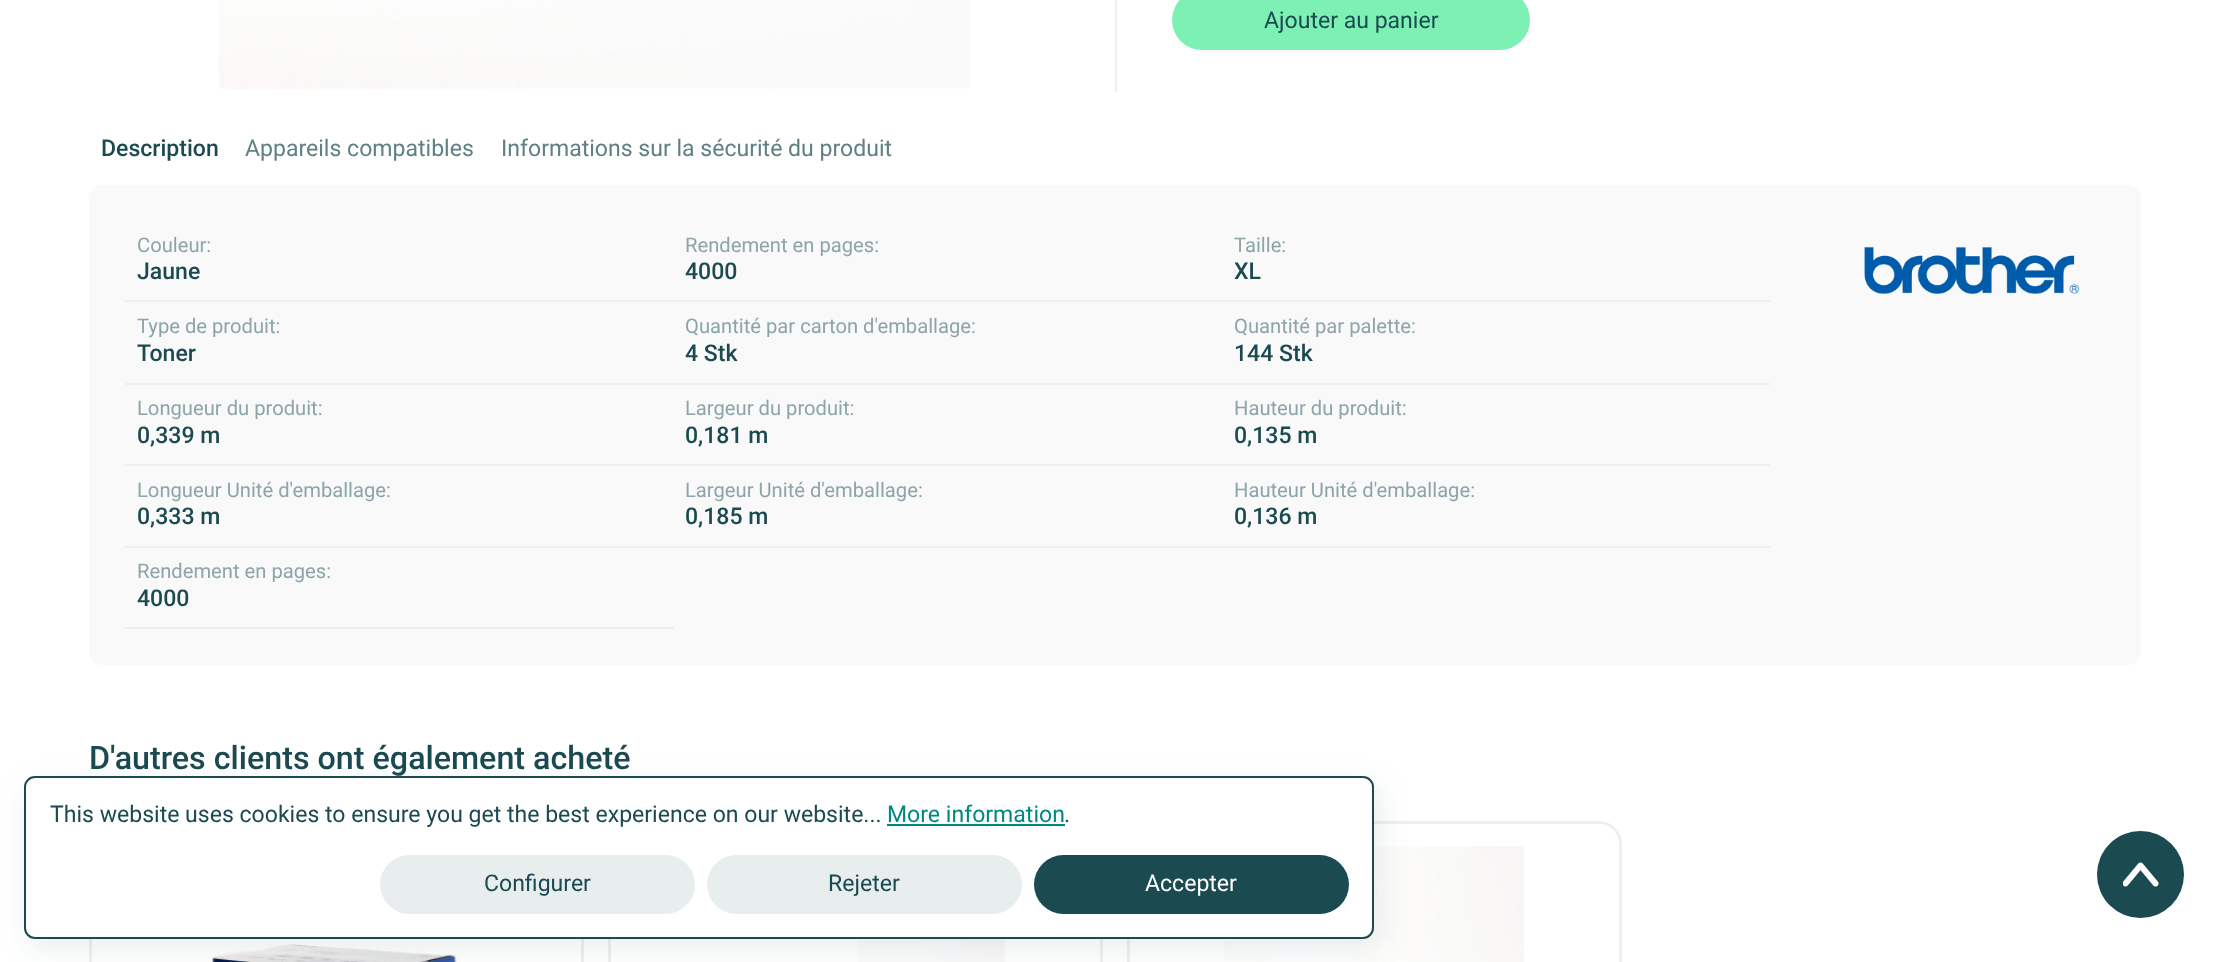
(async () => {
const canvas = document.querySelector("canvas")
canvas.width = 2228
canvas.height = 962
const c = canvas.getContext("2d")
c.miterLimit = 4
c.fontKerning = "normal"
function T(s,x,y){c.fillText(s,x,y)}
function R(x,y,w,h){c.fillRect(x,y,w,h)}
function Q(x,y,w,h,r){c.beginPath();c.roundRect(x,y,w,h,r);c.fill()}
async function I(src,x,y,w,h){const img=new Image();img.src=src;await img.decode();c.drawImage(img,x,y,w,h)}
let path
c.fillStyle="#fff"
R(0,0,2228,962)
await I("1.png",219,0,751,89)
c.fillStyle="#efefef"
R(1115,0,2,92)
c.fillStyle="#7df0b4"
Q(1172,-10,358,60,30)
c.font="23.05px Roboto"
c.fillStyle="#1b4a51"
T("Ajouter au panier",1264,28)
c.font="500 23.05px Roboto"
T("Description",101,156)
c.font="23.05px Roboto"
c.fillStyle="#5f8085"
T("Appareils compatibles",245,156)
T("Informations sur la sécurité du produit",501,156)
c.fillStyle="#f9f9f9"
Q(89,185,2052,480,14)
c.fillStyle="#efefef"
R(125,300,1645,2)
c.font="20.2px Roboto"
c.fillStyle="#8da5a8"
T("Couleur:",137,252)
c.font="500 23.05px Roboto"
c.fillStyle="#1b4a51"
T("Jaune",137,279)
c.font="20.2px Roboto"
c.fillStyle="#8da5a8"
T("Rendement en pages:",685,252)
c.font="500 23.05px Roboto"
c.fillStyle="#1b4a51"
T("4000",685,279)
c.font="20.2px Roboto"
c.fillStyle="#8da5a8"
T("Taille:",1234,252)
c.font="500 23.05px Roboto"
c.fillStyle="#1b4a51"
T("XL",1234,279)
c.fillStyle="#efefef"
R(125,383,1645,2)
c.font="20.2px Roboto"
c.fillStyle="#8da5a8"
T("Type de produit:",137,333)
c.font="500 23.05px Roboto"
c.fillStyle="#1b4a51"
T("Toner",137,361)
c.font="20.2px Roboto"
c.fillStyle="#8da5a8"
T("Quantité par carton d'emballage:",685,333)
c.font="500 23.05px Roboto"
c.fillStyle="#1b4a51"
T("4 Stk",685,361)
c.font="20.2px Roboto"
c.fillStyle="#8da5a8"
T("Quantité par palette:",1234,333)
c.font="500 23.05px Roboto"
c.fillStyle="#1b4a51"
T("144 Stk",1234,361)
c.fillStyle="#efefef"
R(125,464,1645,2)
c.font="20.2px Roboto"
c.fillStyle="#8da5a8"
T("Longueur du produit:",137,415)
c.font="500 23.05px Roboto"
c.fillStyle="#1b4a51"
T("0,339 m",137,443)
c.font="20.2px Roboto"
c.fillStyle="#8da5a8"
T("Largeur du produit:",685,415)
c.font="500 23.05px Roboto"
c.fillStyle="#1b4a51"
T("0,181 m",685,443)
c.font="20.2px Roboto"
c.fillStyle="#8da5a8"
T("Hauteur du produit:",1234,415)
c.font="500 23.05px Roboto"
c.fillStyle="#1b4a51"
T("0,135 m",1234,443)
c.fillStyle="#efefef"
R(125,546,1645,2)
c.font="20.2px Roboto"
c.fillStyle="#8da5a8"
T("Longueur Unité d'emballage:",137,497)
c.font="500 23.05px Roboto"
c.fillStyle="#1b4a51"
T("0,333 m",137,524)
c.font="20.2px Roboto"
c.fillStyle="#8da5a8"
T("Largeur Unité d'emballage:",685,497)
c.font="500 23.05px Roboto"
c.fillStyle="#1b4a51"
T("0,185 m",685,524)
c.font="20.2px Roboto"
c.fillStyle="#8da5a8"
T("Hauteur Unité d'emballage:",1234,497)
c.font="500 23.05px Roboto"
c.fillStyle="#1b4a51"
T("0,136 m",1234,524)
c.fillStyle="#efefef"
R(125,627,549,2)
c.font="20.2px Roboto"
c.fillStyle="#8da5a8"
T("Rendement en pages:",137,578)
c.font="500 23.05px Roboto"
c.fillStyle="#1b4a51"
T("4000",137,606)
await I("2.png",1864,246,215,48)
c.font="500 32.25px Roboto"
T("D'autres clients ont également acheté",89,769)
path = new Path2D("M628 788.5c-181-20.5-329.5-6.5-535.5 7")
c.strokeStyle="#7df0b4"
c.lineWidth=4.5
c.lineCap="round"
c.stroke(path)
c.strokeStyle="#efefef"
c.lineWidth=3
c.strokeRect(90.5,822.5,492,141)
await I("3.png",212,944,245,18)
c.strokeRect(609.5,822.5,492,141)
await I("4.png",858,939,147,23)
c.beginPath()
c.roundRect(1128.5,822.5,492,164,21.5)
c.stroke()
await I("5.png",1224,846,300,116)
c.fillStyle="#1b4a511a"
c.filter="blur(15px)"
c.beginPath()
c.roundRect(29,785,1350,163,11)
c.fill()
c.filter="none"
c.fillStyle="#fff"
c.beginPath()
c.roundRect(25,777,1348,161,10)
c.fill()
c.strokeStyle="#1b4a51"
c.lineWidth=2
c.stroke()
c.font="23.05px Roboto"
c.fillStyle="#1b4a51"
T("This website uses cookies to ensure you get the best experience on our website...",50,822)
c.fillStyle="#00897f"
T("More information",887,822)
R(887,824,178,2)
c.fillStyle="#1b4a51"
T(".",1064,822)
c.fillStyle="#e8edee"
Q(380,855,315,59,29.5)
c.fillStyle="#1b4a51"
T("Configurer",484,891)
c.fillStyle="#e8edee"
Q(707,855,315,59,29.5)
c.fillStyle="#1b4a51"
T("Rejeter",828,891)
Q(1034,855,315,59,29.5)
c.fillStyle="#fff"
T("Accepter",1145,891)
c.fillStyle="#1b4a51"
c.beginPath()
c.arc(2140.5,874.5,43.5,0,7)
c.fill()
await I("6.png",2123,862,36,25)
})()
